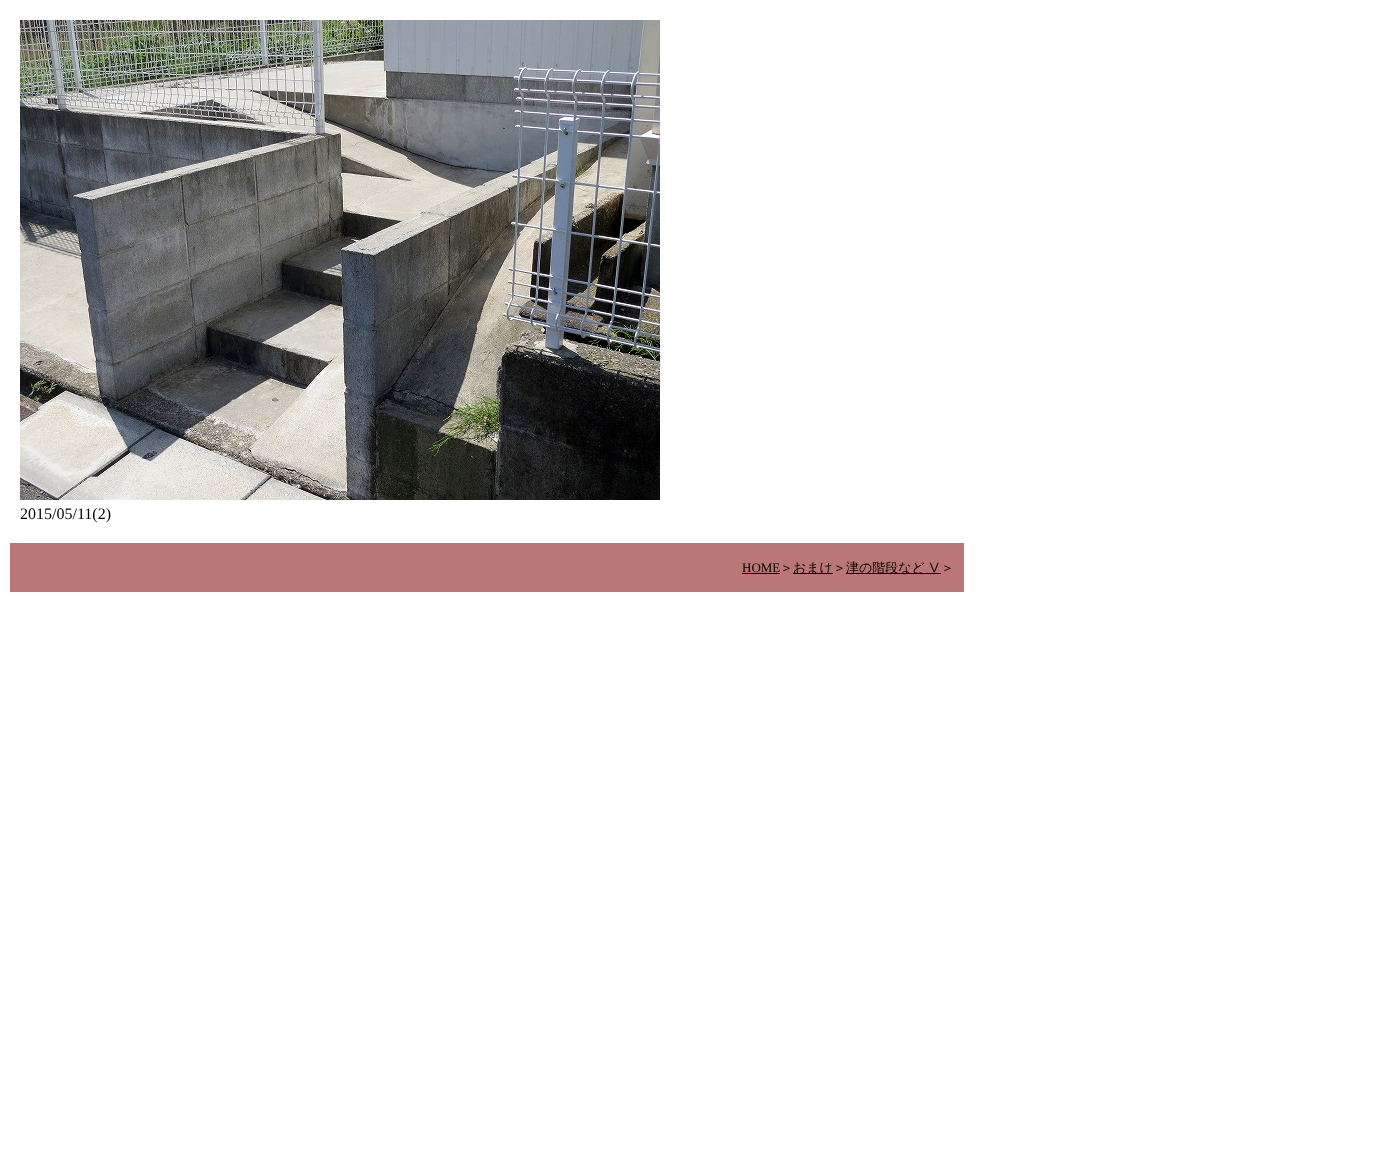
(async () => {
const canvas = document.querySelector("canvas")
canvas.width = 1385
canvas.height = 1164
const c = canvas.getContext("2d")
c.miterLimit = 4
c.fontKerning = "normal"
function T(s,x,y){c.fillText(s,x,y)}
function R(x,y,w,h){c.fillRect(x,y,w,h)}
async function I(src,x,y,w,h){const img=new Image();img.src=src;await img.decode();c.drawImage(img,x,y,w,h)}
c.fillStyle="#fff"
R(0,0,1385,1164)
await I("1.png",20,20,640,480)
c.font="16px Liberation Serif"
c.fillStyle="#000"
T("2015/05/11(2)",20,519)
c.fillStyle="#b77"
R(10,543,954,49)
c.font="13px Liberation Serif"
c.fillStyle="#000"
T("HOME",742,572)
R(742,573,38,1)
c.font="500 13px WenQuanYi Zen Hei"
T("＞",780,572)
R(793,573,40,1)
T("おまけ＞",793,572)
R(846,573,95,1)
c.wordSpacing="-1px"
T("津の階段など Ⅴ",846,572)
c.wordSpacing="0px"
T("＞",941,572)
})()
